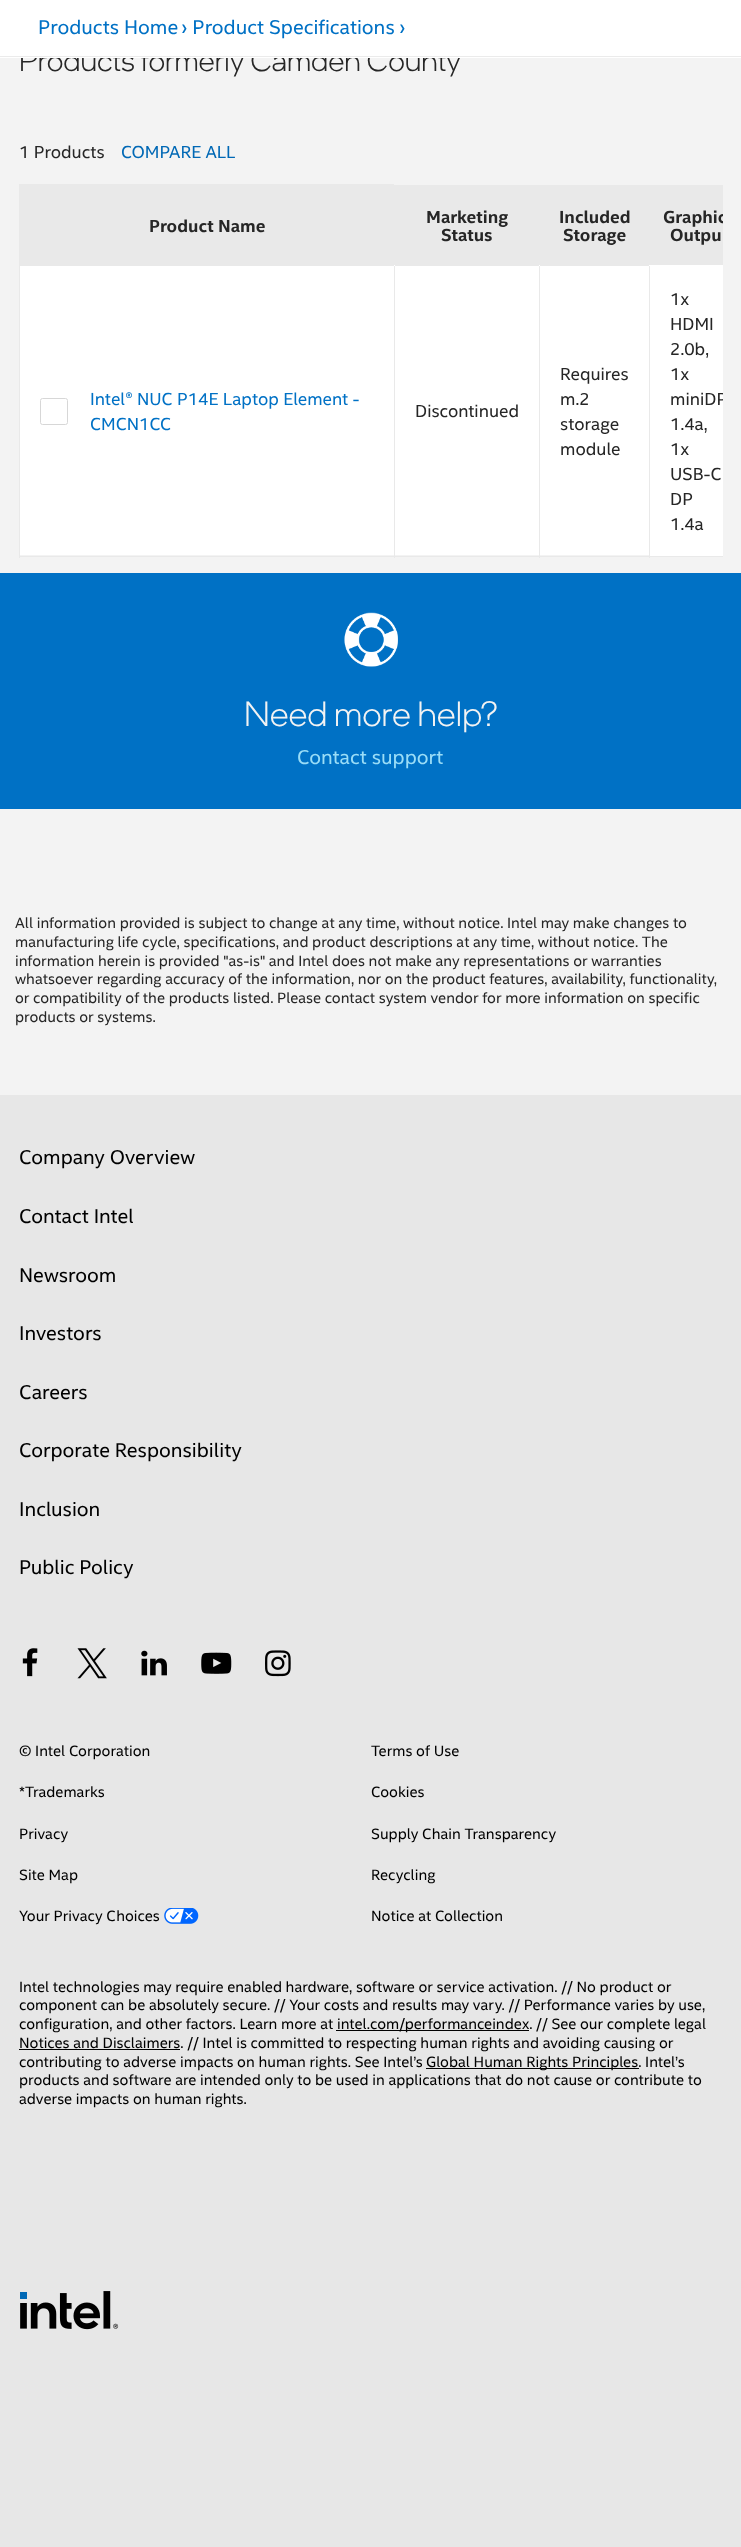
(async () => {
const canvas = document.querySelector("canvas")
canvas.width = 741
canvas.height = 2547
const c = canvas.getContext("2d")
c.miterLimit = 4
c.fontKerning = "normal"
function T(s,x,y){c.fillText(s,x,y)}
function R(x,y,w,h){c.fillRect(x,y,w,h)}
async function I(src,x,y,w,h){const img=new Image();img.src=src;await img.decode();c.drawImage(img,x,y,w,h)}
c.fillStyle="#f3f3f3"
R(0,0,741,2547)
c.font="300 30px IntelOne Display"
c.fillStyle="#262626"
T("Products formerly Camden County",19,71)
c.fillStyle="#fff"
R(0,0,741,58)
c.fillStyle="#ebebeb"
R(0,56,741,1)
c.font="20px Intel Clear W"
c.fillStyle="#0071c5"
T("Products Home",38,34)
T("› Product Specifications",181,34)
T("›",399,34)
c.font="17.5px Intel Clear W"
c.fillStyle="#262626"
T("1 Products",19,158)
c.fillStyle="#0068b5"
T("COMPARE ALL",121,158)
c.fillStyle="#e9e9e9"
R(19,184,375,1)
R(19,556,704,1)
R(19,184,1,374)
R(19,265,631,1)
R(394,265,1,293)
c.fillStyle="#fff"
R(394,265,1,1)
c.fillStyle="#e9e9e9"
R(20,185,703,80)
c.font="bold 17.5px Intel Clear W"
c.fillStyle="#262626"
T("Product Name",149,232)
c.fillStyle="#e9e9e9"
R(539,265,1,293)
c.fillStyle="#fff"
R(539,265,1,1)
c.fillStyle="#262626"
T("Marketing",426,223)
T("Status",441,241)
c.fillStyle="#e9e9e9"
R(649,265,1,293)
c.fillStyle="#fff"
R(649,265,1,1)
c.fillStyle="#262626"
T("Included",559,223)
T("Storage",563,241)
c.save()
c.beginPath()
c.rect(19,184,704,374)
c.clip()
T("Graphic",663,223)
c.restore()
T("Outpu",670,241)
c.fillStyle="#fff"
R(20,266,374,289)
c.beginPath()
c.roundRect(40.5,398.5,27,26,2)
c.strokeStyle="#d7d7d7"
c.stroke()
c.font="17.5px Intel Clear W"
c.fillStyle="#0071c5"
T("Intel® NUC P14E Laptop Element -",90,405)
T("CMCN1CC",90,430)
c.fillStyle="#fff"
R(395,266,144,289)
c.fillStyle="#262626"
T("Discontinued",415,417)
c.fillStyle="#fff"
R(540,266,109,289)
c.fillStyle="#262626"
T("Requires",560,380)
T("m.2",560,405)
T("storage",560,430)
T("module",560,455)
c.fillStyle="#fff"
R(650,265,73,291)
c.fillStyle="#262626"
T("1x",670,305)
T("HDMI",670,330)
T("2.0b,",670,355)
T("1x",670,380)
c.save()
c.beginPath()
c.rect(650,266,73,289)
c.clip()
T("miniDP",670,405)
c.restore()
T("1.4a,",670,430)
T("1x",670,455)
T("USB-C",670,480)
T("DP",670,505)
T("1.4a",670,530)
c.fillStyle="#0071c5"
R(0,573,741,236)
await I("1.png",344,612,54,55)
c.font="300 35px IntelOne Display"
c.fillStyle="#f3f3f3"
T("Need more help?",244,726)
c.font="20px Intel Clear W"
c.fillStyle="#9addf7"
T("Contact support",297,764)
c.font="15px Intel Clear W"
c.fillStyle="#262626"
T("All information provided is subject to change at any time, without notice. Intel may make changes to",15,928)
T("manufacturing life cycle, specifications, and product descriptions at any time, without notice. The",15,947)
T("information herein is provided \"as-is\" and Intel does not make any representations or warranties",15,966)
T("whatsoever regarding accuracy of the information, nor on the product features, availability, functionality,",15,984)
T("or compatibility of the products listed. Please contact system vendor for more information on specific",15,1003)
T("products or systems.",15,1022)
c.fillStyle="#e7e7e7"
R(0,1095,741,1452)
c.font="20px Intel Clear W"
c.fillStyle="#000"
T("Company Overview",19,1164)
T("Contact Intel",19,1223)
T("Newsroom",19,1282)
T("Investors",19,1340)
T("Careers",19,1399)
T("Corporate Responsibility",19,1457)
T("Inclusion",19,1516)
T("Public Policy",19,1574)
await I("2.png",22,1648,16,29)
await I("3.png",77,1648,30,31)
await I("4.png",141,1650,26,26)
await I("5.png",201,1652,31,22)
await I("6.png",265,1650,26,27)
c.font="15px Intel Clear W"
T("© Intel Corporation",19,1756)
T("Terms of Use",371,1756)
T("*Trademarks",19,1797)
T("Cookies",371,1797)
T("Privacy",19,1839)
T("Supply Chain Transparency",371,1839)
T("Site Map",19,1880)
T("Recycling",371,1880)
T("Your Privacy Choices",19,1921)
await I("7.png",164,1908,35,16)
T("Notice at Collection",371,1921)
T("Intel technologies may require enabled hardware, software or service activation. // No product or",19,1992)
T("component can be absolutely secure. // Your costs and results may vary. // Performance varies by use,",19,2010)
T("configuration, and other factors. Learn more at",19,2029)
R(336,2030,193,1)
T("intel.com/performanceindex. // See our complete legal",337,2029)
R(19,2049,161,1)
T("Notices and Disclaimers. // Intel is committed to respecting human rights and avoiding causing or",19,2048)
T("contributing to adverse impacts on human rights. See Intel’s",19,2067)
R(426,2068,213,1)
T("Global Human Rights Principles. Intel’s",426,2067)
T("products and software are intended only to be used in applications that do not cause or contribute to",19,2085)
T("adverse impacts on human rights.",19,2104)
await I("8.png",20,2291,99,39)
})()
